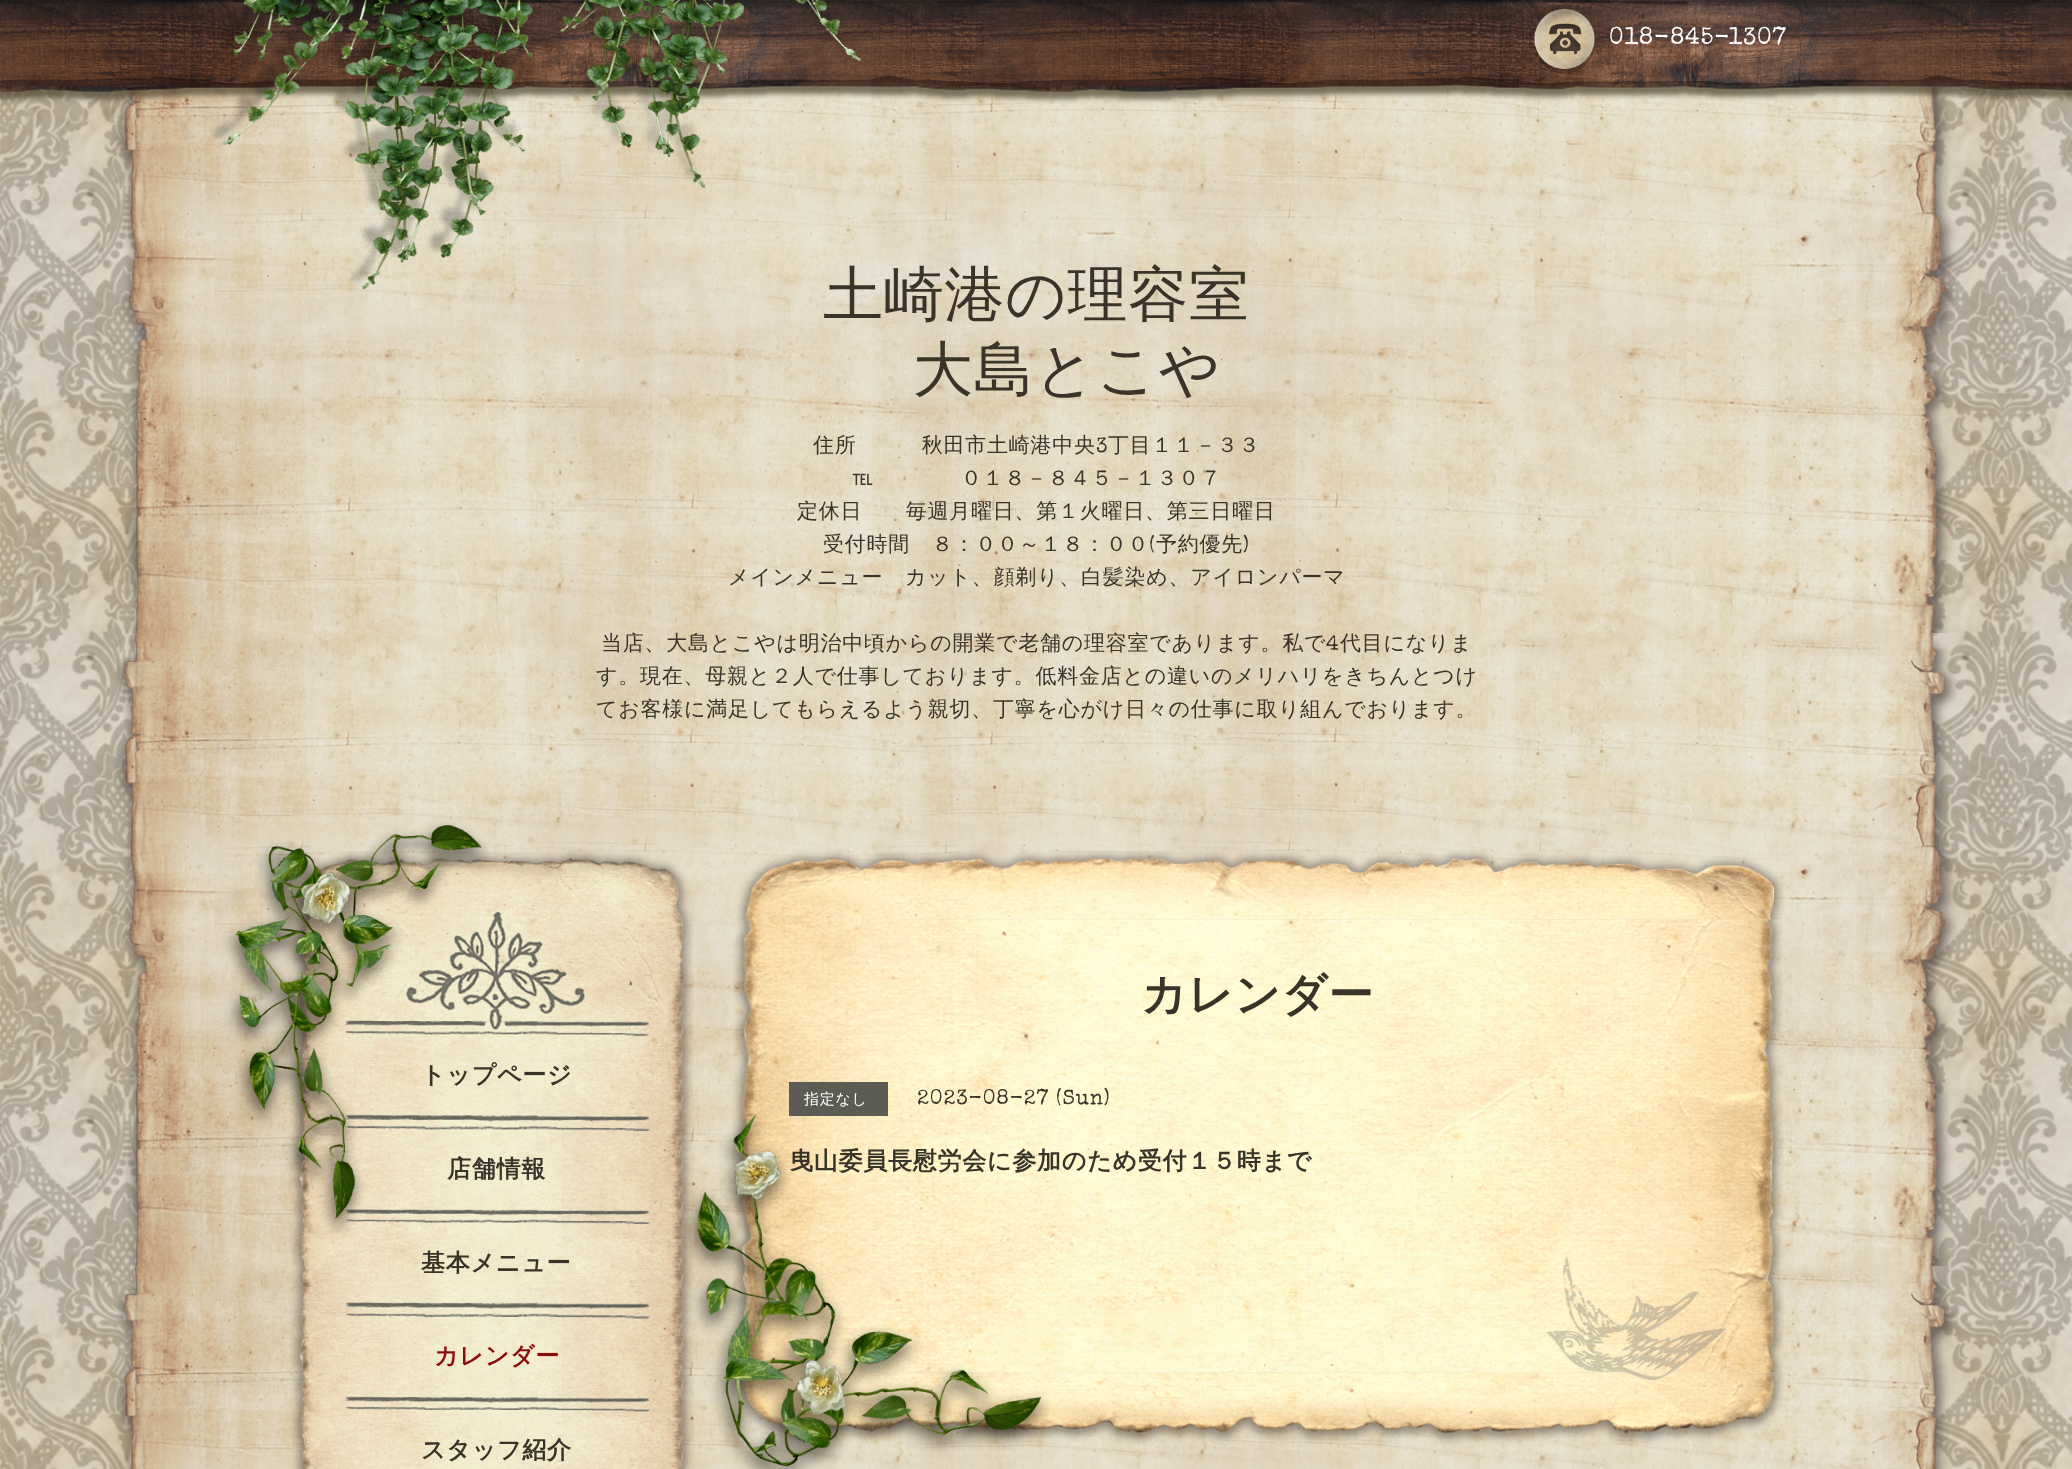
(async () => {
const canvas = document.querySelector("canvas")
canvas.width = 2072
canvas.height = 1469
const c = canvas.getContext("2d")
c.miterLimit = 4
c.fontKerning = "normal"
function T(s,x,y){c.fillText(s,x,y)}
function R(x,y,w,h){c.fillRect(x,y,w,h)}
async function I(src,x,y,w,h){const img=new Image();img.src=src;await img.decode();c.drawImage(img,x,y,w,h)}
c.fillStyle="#fff"
R(0,0,2072,1469)
await I("1.png",0,0,2072,1469)
await I("2.png",113,0,1849,1469)
await I("3.png",0,0,2072,104)
await I("4.png",209,0,652,290)
await I("5.png",1534,9,61,65)
c.letterSpacing="0.75px"
c.font="24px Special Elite"
T("018-845-1307",1609,44)
c.font="500 60px WenQuanYi Zen Hei"
c.fillStyle="#3a3329"
T("土崎港の理容室",823,315)
T("大島とこや",913,390)
c.font="500 21px WenQuanYi Zen Hei"
T("住所　　　秋田市土崎港中央",813,452)
c.font="21px Special Elite"
T("3",1096,452)
c.font="500 21px WenQuanYi Zen Hei"
T("丁目１１－３３",1108,452)
T("℡　　　　０１８－８４５－１３０７",852,485)
T("定休日　　毎週月曜日、第１火曜日、第三日曜日",797,518)
T("受付時間　８：００～１８：００",823,551)
c.font="21px Special Elite"
T("(",1149,551)
c.font="500 21px WenQuanYi Zen Hei"
T("予約優先",1156,551)
c.font="21px Special Elite"
T(")",1243,551)
c.font="500 21px WenQuanYi Zen Hei"
T("メインメニュー　カット、顔剃り、白髪染め、アイロンパーマ",728,584)
T("当店、大島とこやは明治中頃からの開業で老舗の理容室であります。私で",601,650)
c.font="21px Special Elite"
T("4",1326,650)
c.font="500 21px WenQuanYi Zen Hei"
T("代目になりま",1340,650)
T("す。現在、母親と２人で仕事しております。低料金店との違いのメリハリをきちんとつけ",596,683)
T("てお客様に満足してもらえるよう親切、丁寧を心がけ日々の仕事に取り組んでおります。",596,716)
await I("6.png",289,850,405,211)
await I("13.png",731,850,1053,595)
await I("14.png",732,919,1052,454)
c.fillStyle="#5c5c55"
R(789,1082,99,34)
c.font="bold 24px WenQuanYi Zen Hei"
c.fillStyle="#3a3329"
T("曳山委員長慰労会に参加のため受付１５時まで",789,1169)
await I("15.png",684,1113,366,356)
await I("8.png",289,1060,405,409)
await I("9.png",345,1114,305,17)
await I("10.png",345,1209,305,15)
await I("7.png",214,821,275,414)
T("トップページ",421,1083)
T("店舗情報",447,1177)
T("基本メニュー",421,1271)
await I("11.png",345,1302,305,17)
c.fillStyle="#8b0c0c"
T("カレンダー",434,1364)
await I("12.png",345,1396,305,16)
c.fillStyle="#3a3329"
T("スタッフ紹介",421,1458)
c.font="bold 45px WenQuanYi Zen Hei"
T("カレンダー",1141,1010)
c.font="500 15px WenQuanYi Zen Hei"
c.fillStyle="#fff"
T("指定なし",804,1104)
c.font="21px Special Elite"
c.fillStyle="#3a3329"
T("2023-08-27 (Sun)",917,1104)
await I("16.png",1546,1257,181,123)
})()
